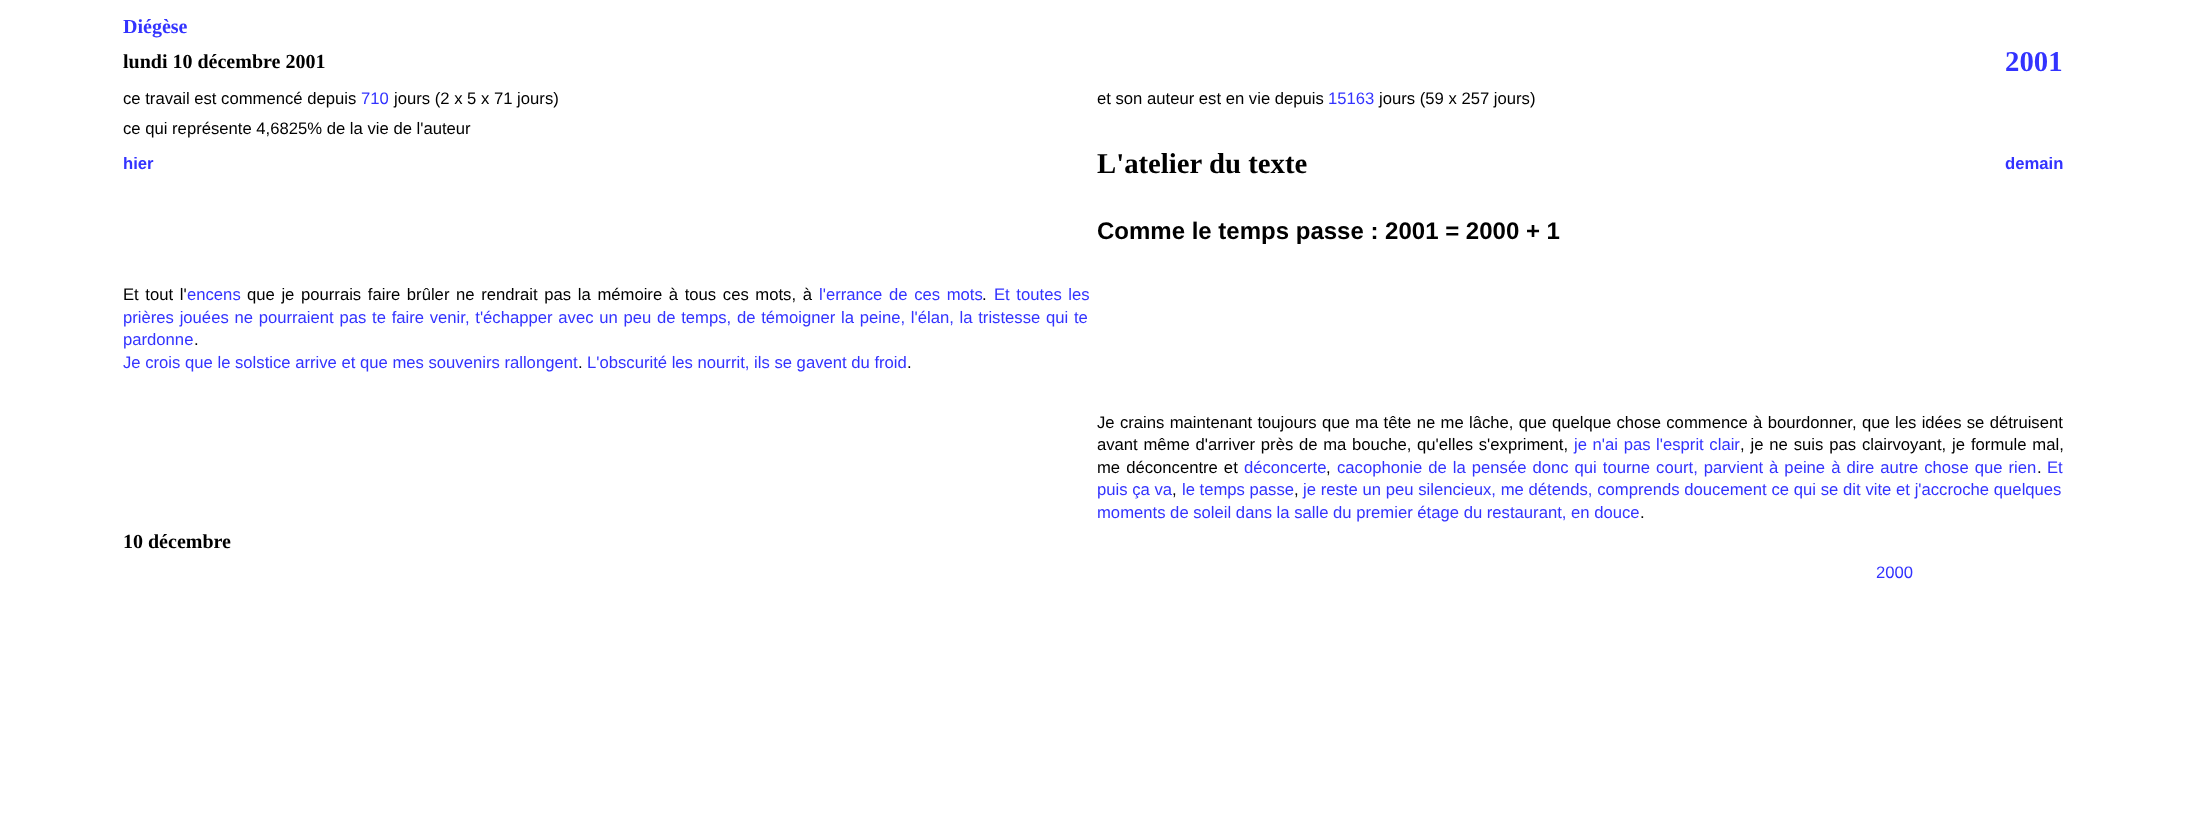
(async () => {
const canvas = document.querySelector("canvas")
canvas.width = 2186
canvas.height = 821
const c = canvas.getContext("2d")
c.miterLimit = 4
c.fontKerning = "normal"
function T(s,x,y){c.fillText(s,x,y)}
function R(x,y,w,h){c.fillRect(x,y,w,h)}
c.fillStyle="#fff"
R(0,0,2186,821)
c.font="bold 20px Liberation Serif"
c.fillStyle="#33f"
T("Diégèse",123,33)
c.fillStyle="#000"
T("lundi 10 décembre 2001",123,68)
c.font="bold 28.75px Liberation Serif"
c.fillStyle="#33f"
T("2001",2005,71)
c.font="16.67px Liberation Sans"
c.fillStyle="#000"
T("ce travail est commencé depuis",123,104)
c.fillStyle="#33f"
T("710",361,104)
c.fillStyle="#000"
T("jours (2 x 5 x 71 jours)",394,104)
T("et son auteur est en vie depuis",1097,104)
c.fillStyle="#33f"
T("15163",1328,104)
c.fillStyle="#000"
T("jours (59 x 257 jours)",1379,104)
T("ce qui représente 4,6825% de la vie de l'auteur",123,134)
c.font="bold 16.67px Liberation Sans"
c.fillStyle="#33f"
T("hier",123,169)
c.font="bold 28.75px Liberation Serif"
c.fillStyle="#000"
T("L'atelier du texte",1097,173)
c.font="bold 16.67px Liberation Sans"
c.fillStyle="#33f"
T("demain",2005,169)
c.font="bold 24px Liberation Sans"
c.fillStyle="#000"
T("Comme le temps passe : 2001 = 2000 + 1",1097,239)
c.wordSpacing="2px"
c.font="16.67px Liberation Sans"
T("Et tout l'",123,300)
c.wordSpacing="0px"
c.fillStyle="#33f"
T("encens",187,300)
c.wordSpacing="2px"
c.fillStyle="#000"
T("que je pourrais faire brûler ne rendrait pas la mémoire à tous ces mots, à",247,300)
c.fillStyle="#33f"
T("l'errance de ces mots",819,300)
c.wordSpacing="0px"
c.fillStyle="#000"
T(".",982,300)
c.wordSpacing="2px"
c.fillStyle="#33f"
T("Et toutes les",994,300)
c.wordSpacing="1.1px"
T("prières jouées ne pourraient pas te faire venir, t'échapper avec un peu de temps, de témoigner la peine, l'élan, la tristesse qui te",123,323)
c.wordSpacing="0px"
T("pardonne",123,345)
c.fillStyle="#000"
T(".",194,345)
c.fillStyle="#33f"
T("Je crois que le solstice arrive et que mes souvenirs rallongent",123,368)
c.fillStyle="#000"
T(".",578,368)
c.fillStyle="#33f"
T("L'obscurité les nourrit, ils se gavent du froid",587,368)
c.fillStyle="#000"
T(".",907,368)
c.wordSpacing="0.7px"
T("Je crains maintenant toujours que ma tête ne me lâche, que quelque chose commence à bourdonner, que les idées se détruisent",1097,428)
c.wordSpacing="1.1px"
T("avant même d'arriver près de ma bouche, qu'elles s'expriment,",1097,450)
c.wordSpacing="1px"
c.fillStyle="#33f"
T("je n'ai pas l'esprit clair",1574,450)
c.wordSpacing="1.25px"
c.fillStyle="#000"
T(", je ne suis pas clairvoyant, je formule mal,",1740,450)
c.wordSpacing="1.4px"
T("me déconcentre et",1097,473)
c.wordSpacing="0px"
c.fillStyle="#33f"
T("déconcerte",1244,473)
c.fillStyle="#000"
T(",",1326,473)
c.wordSpacing="1.4px"
c.fillStyle="#33f"
T("cacophonie de la pensée donc qui tourne court, parvient à peine à dire autre chose que rien",1337,473)
c.wordSpacing="0px"
c.fillStyle="#000"
T(".",2037,473)
c.fillStyle="#33f"
T("Et",2047,473)
T("puis ça va",1097,495)
c.fillStyle="#000"
T(",",1172,495)
c.fillStyle="#33f"
T("le temps passe",1182,495)
c.fillStyle="#000"
T(",",1294,495)
c.wordSpacing="0.1px"
c.fillStyle="#33f"
T("je reste un peu silencieux, me détends, comprends doucement ce qui se dit vite et j'accroche quelques",1303,495)
c.wordSpacing="0px"
T("moments de soleil dans la salle du premier étage du restaurant, en douce",1097,518)
c.fillStyle="#000"
T(".",1640,518)
c.font="bold 20px Liberation Serif"
T("10 décembre",123,548)
c.font="16.67px Liberation Sans"
c.fillStyle="#33f"
T("2000",1876,578)
})()
